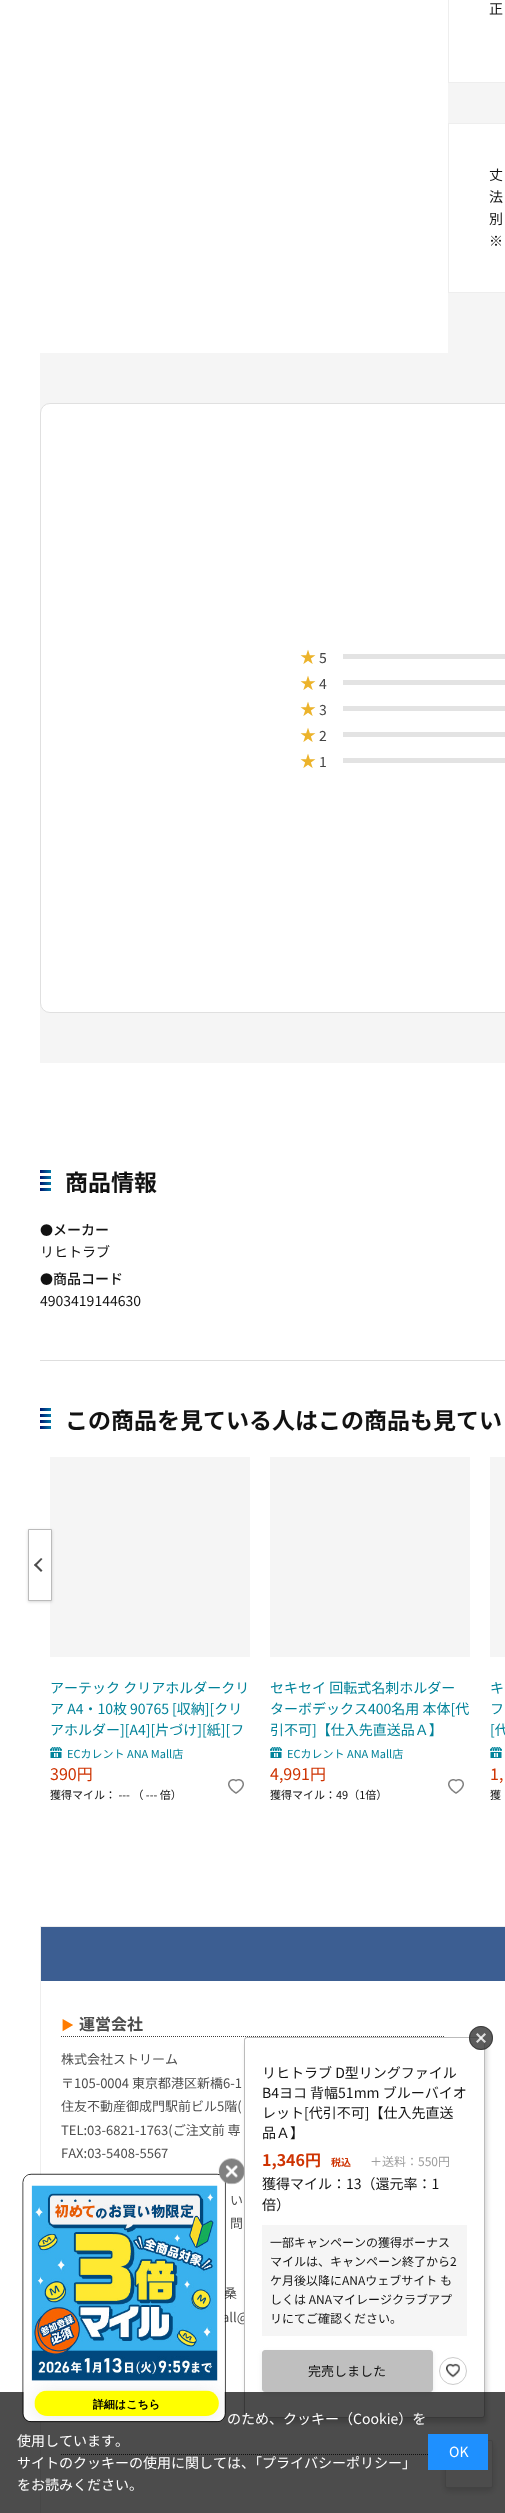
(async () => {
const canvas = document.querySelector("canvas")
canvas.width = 505
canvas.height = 2513
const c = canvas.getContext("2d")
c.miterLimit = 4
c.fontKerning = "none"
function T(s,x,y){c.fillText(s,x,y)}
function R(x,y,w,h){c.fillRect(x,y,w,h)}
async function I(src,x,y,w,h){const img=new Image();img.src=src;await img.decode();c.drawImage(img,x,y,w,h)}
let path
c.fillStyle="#fff"
R(0,0,505,2513)
c.fillStyle="#f5f5f5"
R(448,83,57,270)
c.strokeStyle="#eee"
c.strokeRect(448.5,-.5,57,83)
c.font="14px Noto Sans JP"
c.fillStyle="#121212"
T("正",489,14)
c.strokeRect(448.5,123.5,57,169)
c.fillStyle="#fff"
R(449,124,56,168)
c.fillStyle="#121212"
T("丈",489,180)
T("法",489,202)
T("別",489,224)
T("※",489,246)
c.fillStyle="#f5f5f5"
R(40,353,465,710)
c.fillStyle="#fff"
c.beginPath()
c.roundRect(40.5,403.5,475,609,9.5)
c.fill()
c.strokeStyle="#e0e0e0"
c.stroke()
c.font="16px Noto Sans JP"
c.fillStyle="#ecb32b"
T("★",300,663)
c.font="14px Noto Sans JP"
c.fillStyle="#444"
T("5",319,663)
c.fillStyle="#e3e3e3"
R(343,654,162,5)
c.font="16px Noto Sans JP"
c.fillStyle="#ecb32b"
T("★",300,689)
c.font="14px Noto Sans JP"
c.fillStyle="#444"
T("4",319,689)
c.fillStyle="#e3e3e3"
R(343,680,162,5)
c.font="16px Noto Sans JP"
c.fillStyle="#ecb32b"
T("★",300,715)
c.font="14px Noto Sans JP"
c.fillStyle="#444"
T("3",319,715)
c.fillStyle="#e3e3e3"
R(343,706,162,5)
c.font="16px Noto Sans JP"
c.fillStyle="#ecb32b"
T("★",300,741)
c.font="14px Noto Sans JP"
c.fillStyle="#444"
T("2",319,741)
c.fillStyle="#e3e3e3"
R(343,732,162,5)
c.font="16px Noto Sans JP"
c.fillStyle="#ecb32b"
T("★",300,767)
c.font="14px Noto Sans JP"
c.fillStyle="#444"
T("1",319,767)
c.fillStyle="#e3e3e3"
R(343,758,162,5)
await I("1.png",40,1170,11,21)
c.font="bold 23px Noto Sans JP"
c.fillStyle="#121212"
T("商品情報",65,1191)
c.font="500 13px Noto Sans JP"
T("●",40,1235)
c.font="500 14px Noto Sans JP"
T("メーカー",53,1235)
c.font="14px Noto Sans JP"
T("リヒトラブ",40,1257)
c.font="500 13px Noto Sans JP"
T("●",40,1284)
c.font="500 14px Noto Sans JP"
T("商品コード",53,1284)
c.font="14px Noto Sans JP"
T("4903419144630",40,1306)
c.fillStyle="#dedede"
R(40,1360,465,1)
await I("1.png",40,1408,11,21)
c.font="bold 23px Noto Sans JP"
c.fillStyle="#121212"
T("この商品を見ている人はこの商品も見てい",65,1429)
c.fillStyle="#f5f5f5"
R(50,1457,200,200)
c.fillStyle="#00000029"
c.filter="blur(1.5px)"
c.beginPath()
c.rect(28,1530,24,72)
c.fill()
c.filter="none"
c.fillStyle="#fff"
c.beginPath()
c.rect(28.5,1529.5,23,71)
c.fill()
c.strokeStyle="#bbb"
c.stroke()
c.fillStyle="#4d4d4d"
path = new Path2D("M41 1572l-7-7l1.5-1.5l7 7z")
c.fill(path)
path = new Path2D("M35.5 1566.5l-1.5-1.5l7-7l1.5 1z")
c.fill(path)
c.font="14px Noto Sans JP"
c.fillStyle="#008299"
T("アーテック クリアホルダークリ",50,1693)
T("ア A4・10枚 90765 [収納][クリ",50,1714)
T("アホルダー][A4][片づけ][紙][フ",50,1735)
await I("2.png",50,1747,12,11)
c.font="11px Noto Sans JP"
T("ECカレント ANA Mall店",67,1758)
c.font="16px Noto Sans JP"
c.fillStyle="#ce3302"
T("390円",50,1780)
c.font="11px Noto Sans JP"
c.fillStyle="#121212"
T("獲得マイル： --- （ --- 倍）",50,1799)
await I("3.png",228,1779,16,15)
c.fillStyle="#f5f5f5"
R(270,1457,200,200)
c.font="14px Noto Sans JP"
c.fillStyle="#008299"
T("セキセイ 回転式名刺ホルダー",270,1693)
T("ターボデックス400名用 本体[代",270,1714)
T("引不可]【仕入先直送品Ａ】",270,1735)
await I("2.png",270,1747,12,11)
c.font="11px Noto Sans JP"
T("ECカレント ANA Mall店",287,1758)
c.font="16px Noto Sans JP"
c.fillStyle="#ce3302"
T("4,991円",270,1780)
c.font="11px Noto Sans JP"
c.fillStyle="#121212"
T("獲得マイル：49（1倍）",270,1799)
await I("3.png",448,1779,16,15)
c.fillStyle="#f5f5f5"
R(490,1457,15,200)
c.font="14px Noto Sans JP"
c.fillStyle="#008299"
T("キ",490,1693)
T("フ",490,1714)
T("[代",490,1735)
await I("2.png",490,1747,12,11)
c.font="16px Noto Sans JP"
c.fillStyle="#ce3302"
T("1,",490,1780)
c.font="11px Noto Sans JP"
c.fillStyle="#121212"
T("獲",490,1799)
c.strokeStyle="#eee"
c.strokeRect(40.5,1926.5,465,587)
path = new Path2D("M61 2036.5h383")
c.strokeStyle="#3f3f3f"
c.setLineDash([1,1])
c.stroke(path)
c.fillStyle="#00000029"
c.filter="blur(2.5px)"
c.beginPath()
c.roundRect(246,2042,241,381,3)
c.fill()
c.filter="none"
c.font="13px Noto Sans JP"
c.fillStyle="#4d4d4d"
T("all@",222,2322)
c.fillStyle="#fff"
c.beginPath()
c.roundRect(244.5,2037.5,240,380,2.5)
c.fill()
c.strokeStyle="#bbb"
c.setLineDash([])
c.stroke()
c.fillStyle="#333333cc"
c.beginPath()
c.arc(481,2038,12,0,7)
c.fill()
c.beginPath()
c.arc(481,2038,11.5,0,7)
c.strokeStyle="#333333cc"
c.stroke()
c.fillStyle="#ffffffcc"
path = new Path2D("M477.5 2033l8.5 8.5l-1.5 1.5l-8.5-8.5z")
c.fill(path)
path = new Path2D("M476 2041.5l8.5-8.5l1.5 1.5l-8.5 8.5z")
c.fill(path)
c.font="14px Noto Sans JP"
c.fillStyle="#121212"
T("リヒトラブ D型リングファイル",262,2078)
T("B4ヨコ 背幅51mm ブルーバイオ",262,2098)
T("レット[代引不可]【仕入先直送",262,2118)
T("品Ａ】",262,2138)
c.font="bold 16px Noto Sans JP"
c.fillStyle="#ce3302"
T("1,346円",262,2166)
c.font="bold 10px Noto Sans JP"
T("税込",331,2166)
c.font="12px Noto Sans JP"
c.fillStyle="#9e9e9e"
T("＋送料：550円",370,2166)
c.font="14px Noto Sans JP"
c.fillStyle="#121212"
T("獲得マイル：13（還元率：1",262,2189)
T("倍）",262,2210)
c.fillStyle="#f5f5f5"
R(262,2225,205,111)
c.font="12px Noto Sans JP"
c.fillStyle="#121212"
T("一部キャンペーンの獲得ボーナス",270,2247)
T("マイルは、キャンペーン終了から2",270,2266)
T("ケ月後以降にANAウェブサイト も",270,2285)
T("しくは ANAマイレージクラブアプ",270,2304)
T("リにてご確認ください。",270,2323)
c.fillStyle="#d5d9d980"
c.filter="blur(2.5px)"
c.beginPath()
c.roundRect(262,2352,171,42,3)
c.fill()
c.filter="none"
c.fillStyle="#bfbfbf"
c.beginPath()
c.roundRect(262.5,2350.5,170,41,2.5)
c.fill()
c.strokeStyle="#bfbfbf"
c.stroke()
c.font="13px Noto Sans JP"
c.fillStyle="#121212"
T("完売しました",308,2376)
c.beginPath()
c.arc(453,2371,13.5,0,7)
c.strokeStyle="#ccc"
c.stroke()
await I("4.png",446,2363,14,15)
c.fillStyle="#3c5e92"
R(41,1927,464,54)
c.font="bold 13px Noto Sans JP"
c.fillStyle="#ff7c02"
T("▶",61,2030)
c.font="bold 16px Noto Sans JP"
c.fillStyle="#4d4d4d"
T("運営会社",79,2030)
c.font="13px Noto Sans JP"
T("株式会社ストリーム",61,2064)
T("〒105-0004 東京都港区新橋6-1",61,2088)
T("住友不動産御成門駅前ビル5階(",61,2111)
T("TEL:03-6821-1763(ご注文前 専",61,2135)
T("FAX:03-5408-5567",61,2158)
T("い",230,2205)
T("問",230,2228)
T("桑",224,2298)
path = new Path2D("M61 2454.5h383")
c.strokeStyle="#3f3f3f"
c.setLineDash([1,1])
c.stroke(path)
c.fillStyle="#00000029"
c.filter="blur(3px)"
c.beginPath()
c.roundRect(445,2443,48,48,2)
c.fill()
c.filter="none"
c.fillStyle="#fff"
c.beginPath()
c.roundRect(445.5,2440.5,47,47,1.5)
c.fill()
c.strokeStyle="#e0e0e0"
c.setLineDash([])
c.stroke()
c.fillStyle="#000000b3"
R(0,2392,505,121)
await I("5.png",22,2173,204,252)
await I("6.png",218,2158,27,27)
c.font="14px Noto Sans JP"
c.fillStyle="#fff"
T("のため、クッキー（Cookie）を",227,2424)
T("使用しています。",17,2446)
T("サイトのクッキーの使用に関しては、「プライバシーポリシー」",17,2468)
T("をお読みください。",17,2490)
c.fillStyle="#1e90ff"
R(428,2434,60,36)
c.fillStyle="#fff"
T("OK",449,2457)
})()
